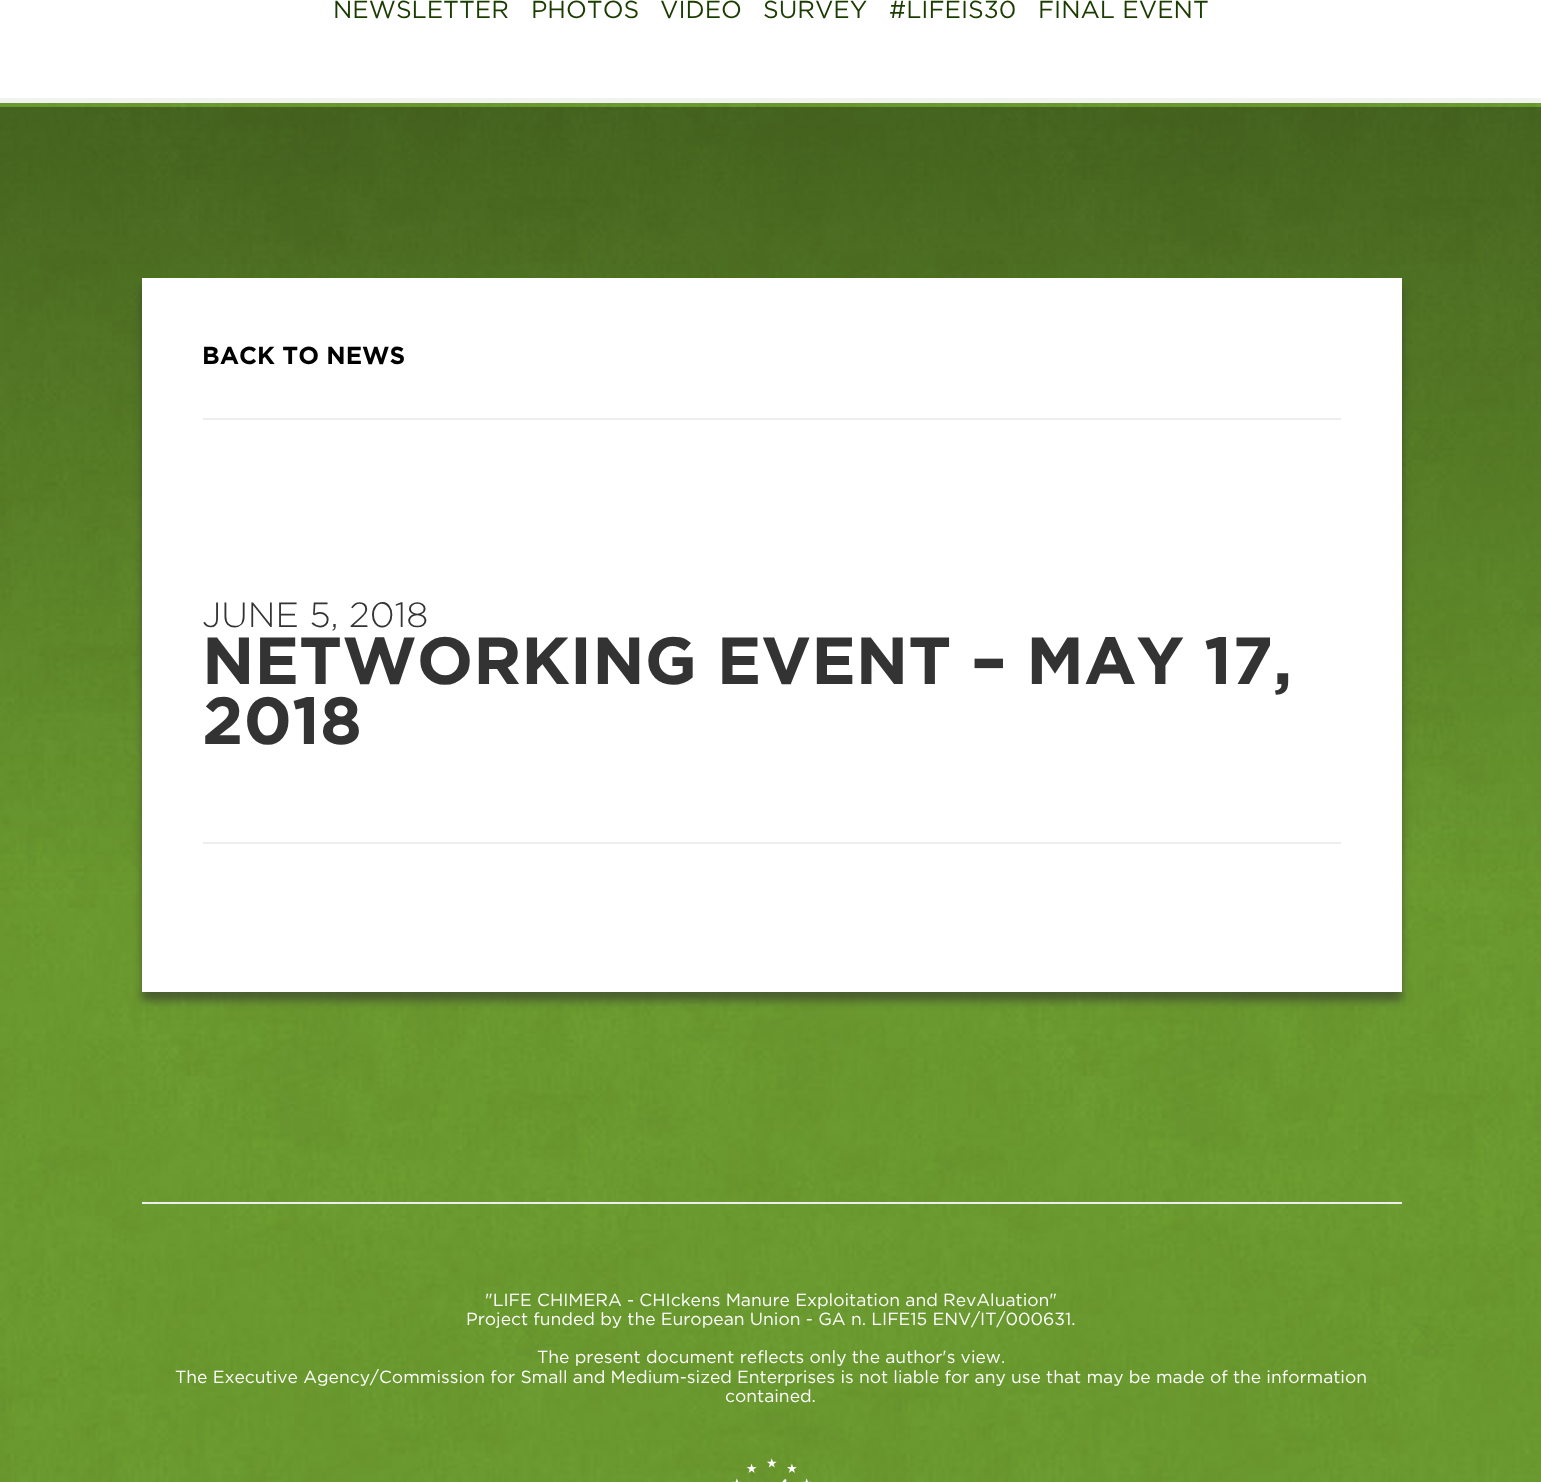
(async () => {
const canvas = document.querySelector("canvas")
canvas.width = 1541
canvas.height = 1482
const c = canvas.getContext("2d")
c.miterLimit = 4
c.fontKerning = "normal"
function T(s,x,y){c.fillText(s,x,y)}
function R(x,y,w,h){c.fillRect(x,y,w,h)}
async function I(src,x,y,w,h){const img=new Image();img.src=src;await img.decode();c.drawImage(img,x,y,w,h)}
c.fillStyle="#fff"
R(0,0,1541,1482)
await I("1.png",0,103,1541,1379)
c.fillStyle="#f2f2f2"
R(0,98,1541,5)
c.font="24.5px Gotham"
c.fillStyle="#1a3c00"
T("NEWSLETTER",333,18)
T("PHOTOS",531,18)
T("VIDEO",660,18)
T("SURVEY",763,18)
T("#LIFEIS30",889,18)
T("FINAL EVENT",1038,18)
c.fillStyle="#3232328c"
c.filter="blur(4.5px)"
c.beginPath()
c.rect(142,287,1260,714)
c.fill()
c.filter="none"
c.fillStyle="#fff"
R(142,278,1260,714)
c.font="bold 24.5px Gotham"
c.fillStyle="#000"
T("BACK TO NEWS",202,364)
c.fillStyle="#eee"
R(203,418,1138,2)
c.font="300 35px Gotham"
c.fillStyle="#333"
T("JUNE 5, 2018",202,627)
c.font="bold 66.5px Gotham"
T("NETWORKING EVENT – MAY 17,",202,684)
T("2018",202,744)
c.fillStyle="#eee"
R(203,842,1138,2)
R(142,1202,1260,2)
c.font="17.5px Gotham"
c.fillStyle="#fff"
T("\"LIFE CHIMERA - CHIckens Manure Exploitation and RevAluation\"",485,1306)
T("Project funded by the European Union - GA n. LIFE15 ENV/IT/000631.",466,1325)
T("The present document reflects only the author's view.",537,1363)
T("The Executive Agency/Commission for Small and Medium-sized Enterprises is not liable for any use that may be made of the information",175,1383)
T("contained.",725,1402)
await I("2.png",732,1458,80,24)
})()
